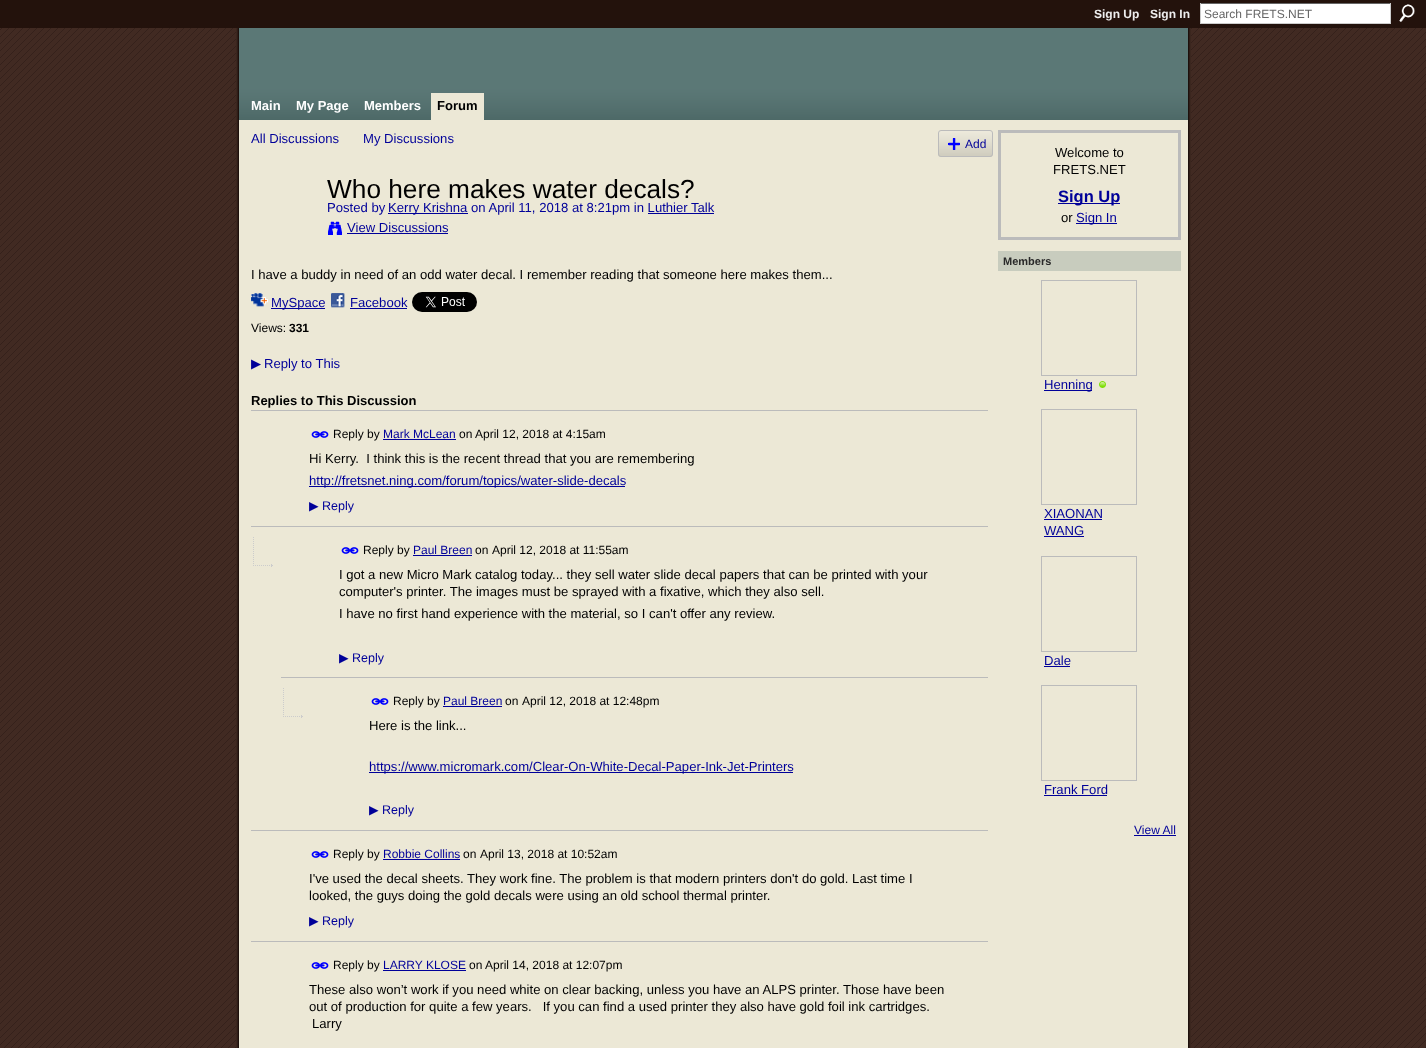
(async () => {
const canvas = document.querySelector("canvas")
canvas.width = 1426
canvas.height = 1048
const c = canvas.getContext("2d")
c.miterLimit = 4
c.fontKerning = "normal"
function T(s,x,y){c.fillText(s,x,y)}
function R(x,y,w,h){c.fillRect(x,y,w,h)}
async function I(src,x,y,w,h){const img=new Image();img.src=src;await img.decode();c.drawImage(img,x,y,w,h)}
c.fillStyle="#fff"
R(0,0,1426,1048)
await I("1.png",0,28,1426,1020)
c.fillStyle="#23120c"
R(0,0,1426,28)
c.font="bold 12px Liberation Sans"
c.fillStyle="#eee"
T("Sign Up",1094,18)
T("Sign In",1150,18)
c.fillStyle="#fff"
R(1201,4,189,19)
c.fillStyle="#666"
R(1200,3,191,1)
c.fillStyle="#ccc"
R(1390,3,1,21)
R(1200,23,191,1)
R(1200,3,1,21)
c.font="12px Liberation Sans"
c.fillStyle="#666"
T("Search FRETS.NET",1204,18)
await I("2.png",1399,4,16,18)
await I("3.png",236,28,955,92)
c.font="bold 13px Liberation Sans"
c.fillStyle="#fff"
T("Main",251,110)
T("My Page",296,110)
T("Members",364,110)
c.fillStyle="#ece8d6"
R(431,93,53,27)
c.fillStyle="#000"
T("Forum",437,110)
await I("4.png",236,120,955,928)
c.font="13.1px Liberation Sans"
c.fillStyle="#009"
T("All Discussions",251,143)
T("My Discussions",363,143)
await I("5.png",938,131,55,26)
c.beginPath()
c.roundRect(938.5,130.5,54,26,2.5)
c.strokeStyle="#bbb"
c.stroke()
await I("6.png",948,138,12,12)
c.font="12px Liberation Sans"
T("Add",965,148)
c.font="26.25px Liberation Sans"
c.fillStyle="#000"
T("Who here makes water decals?",327,198)
c.font="13.1px Liberation Sans"
c.fillStyle="#009"
T("Posted by",327,212)
R(388,213,80,1)
T("Kerry Krishna on April 11, 2018 at 8:21pm in Luthier Talk",388,212)
R(648,213,66,1)
await I("7.png",328,221,14,14)
T("View Discussions",347,232)
R(347,233,101,1)
c.fillStyle="#000"
T("I have a buddy in need of an odd water decal. I remember reading that someone here makes them...",251,279)
await I("8.png",251,293,17,14)
c.fillStyle="#009"
R(271,308,54,1)
T("MySpace",271,307)
await I("9.png",331,293,14,15)
T("Facebook",350,307)
R(350,308,57,1)
await I("10.png",412,292,65,20)
c.font="12px Liberation Sans"
c.fillStyle="#000"
T("Views:",251,332)
c.font="bold 12px Liberation Sans"
T("331",289,332)
c.font="13.1px DejaVu Sans"
c.fillStyle="#009"
T("▶",251,368)
c.font="13.1px Liberation Sans"
T("Reply to This",264,368)
c.font="bold 13px Liberation Sans"
c.fillStyle="#000"
T("Replies to This Discussion",251,405)
c.fillStyle="#bbb"
R(251,410,737,1)
await I("11.png",311,431,18,7)
c.font="12px Liberation Sans"
c.fillStyle="#000"
T("Reply by",333,438)
c.fillStyle="#009"
T("Mark McLean",383,438)
R(383,439,73,1)
c.fillStyle="#000"
T("on",459,438)
T("April 12, 2018 at 4:15am",475,438)
c.font="13.1px Liberation Sans"
T("Hi Kerry.  I think this is the recent thread that you are remembering",309,463)
c.fillStyle="#009"
R(309,486,316,1)
T("http://fretsnet.ning.com/forum/topics/water-slide-decals",309,485)
c.font="12.5px DejaVu Sans"
T("▶",309,510)
c.font="12.5px Liberation Sans"
T("Reply",322,510)
await I("12.png",253,537,20,30)
c.fillStyle="#bbb"
R(251,526,737,1)
await I("11.png",341,547,18,7)
c.font="12px Liberation Sans"
c.fillStyle="#000"
T("Reply by",363,554)
c.fillStyle="#009"
T("Paul Breen",413,554)
R(413,555,59,1)
c.fillStyle="#000"
T("on",475,554)
T("April 12, 2018 at 11:55am",492,554)
c.font="13.1px Liberation Sans"
T("I got a new Micro Mark catalog today... they sell water slide decal papers that can be printed with your",339,579)
T("computer's printer. The images must be sprayed with a fixative, which they also sell.",339,596)
T("I have no first hand experience with the material, so I can't offer any review.",339,618)
c.font="12.5px DejaVu Sans"
c.fillStyle="#009"
T("▶",339,662)
c.font="12.5px Liberation Sans"
T("Reply",352,662)
await I("12.png",283,688,20,30)
c.fillStyle="#bbb"
R(281,677,707,1)
await I("11.png",371,698,18,7)
c.font="12px Liberation Sans"
c.fillStyle="#000"
T("Reply by",393,705)
c.fillStyle="#009"
T("Paul Breen",443,705)
R(443,706,59,1)
c.fillStyle="#000"
T("on",505,705)
T("April 12, 2018 at 12:48pm",522,705)
c.font="13.1px Liberation Sans"
T("Here is the link...",369,730)
c.fillStyle="#009"
R(369,772,424,1)
T("https://www.micromark.com/Clear-On-White-Decal-Paper-Ink-Jet-Printers",369,771)
c.font="12.5px DejaVu Sans"
T("▶",369,814)
c.font="12.5px Liberation Sans"
T("Reply",382,814)
c.fillStyle="#bbb"
R(251,830,737,1)
await I("11.png",311,851,18,7)
c.font="12px Liberation Sans"
c.fillStyle="#000"
T("Reply by",333,858)
c.fillStyle="#009"
T("Robbie Collins",383,858)
R(383,859,77,1)
c.fillStyle="#000"
T("on",463,858)
T("April 13, 2018 at 10:52am",480,858)
c.font="13.1px Liberation Sans"
T("I've used the decal sheets. They work fine. The problem is that modern printers don't do gold. Last time I",309,883)
T("looked, the guys doing the gold decals were using an old school thermal printer.",309,900)
c.font="12.5px DejaVu Sans"
c.fillStyle="#009"
T("▶",309,925)
c.font="12.5px Liberation Sans"
T("Reply",322,925)
c.fillStyle="#bbb"
R(251,941,737,1)
await I("11.png",311,962,18,7)
c.font="12px Liberation Sans"
c.fillStyle="#000"
T("Reply by",333,969)
c.fillStyle="#009"
T("LARRY KLOSE",383,969)
R(383,970,83,1)
c.fillStyle="#000"
T("on",469,969)
T("April 14, 2018 at 12:07pm",485,969)
c.font="13.1px Liberation Sans"
T("These also won’t work if you need white on clear backing, unless you have an ALPS printer. Those have been",309,994)
T("out of production for quite a few years.   If you can find a used printer they also have gold foil ink cartridges.",309,1011)
T("Larry",312,1028)
c.lineWidth=3
c.strokeRect(999.5,131.5,180,107)
T("Welcome to",1055,157)
T("FRETS.NET",1053,174)
c.fillStyle="#009"
R(1058,203,62,1)
c.font="bold 16.5px Liberation Sans"
T("Sign Up",1058,202)
c.font="13.1px Liberation Sans"
c.fillStyle="#000"
T("or",1061,222)
c.fillStyle="#009"
R(1076,223,41,1)
T("Sign In",1076,222)
c.fillStyle="#c8ccbe"
R(998,251,183,20)
c.font="bold 11px Liberation Sans"
c.fillStyle="#292929"
T("Members",1003,265)
c.lineWidth=1
c.strokeRect(1041.5,280.5,95,95)
c.fillStyle="#009"
R(1044,390,48,1)
c.font="13.1px Liberation Sans"
T("Henning",1044,389)
await I("13.png",1099,381,7,7)
c.strokeRect(1041.5,409.5,95,95)
T("XIAONAN",1044,518)
R(1044,519,58,1)
T("WANG",1044,535)
R(1044,536,40,1)
c.strokeRect(1041.5,556.5,95,95)
T("Dale",1044,665)
R(1044,666,26,1)
c.strokeRect(1041.5,685.5,95,95)
T("Frank Ford",1044,794)
R(1044,795,63,1)
c.font="12px Liberation Sans"
T("View All",1134,834)
R(1134,835,42,1)
})()
